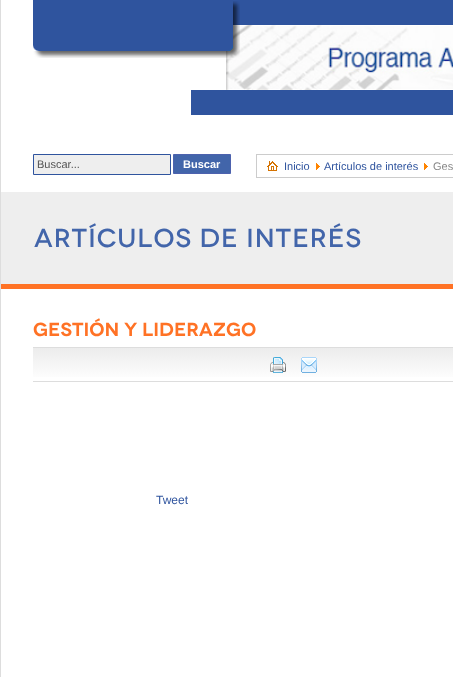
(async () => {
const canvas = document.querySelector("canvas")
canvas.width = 453
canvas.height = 677
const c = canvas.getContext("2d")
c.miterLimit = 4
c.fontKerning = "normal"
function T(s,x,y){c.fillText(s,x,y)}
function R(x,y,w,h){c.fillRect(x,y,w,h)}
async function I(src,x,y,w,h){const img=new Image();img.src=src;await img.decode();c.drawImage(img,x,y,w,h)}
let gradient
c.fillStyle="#fff"
R(0,0,453,677)
c.fillStyle="#ddd"
R(0,0,1,677)
c.fillStyle="#2f549e"
R(33,0,173,13)
R(206,0,247,25)
await I("1.png",233,1,7,12)
await I("5.png",226,25,227,65)
R(33,13,194,32)
await I("2.png",227,13,13,32)
await I("3.png",33,45,194,13)
await I("4.png",227,45,13,13)
R(191,90,262,25)
c.fillStyle="#eee"
c.beginPath()
c.rect(33.5,154.5,137,20)
c.fill()
c.strokeStyle="#2f549e"
c.stroke()
c.font="11px Liberation Sans"
c.fillStyle="#555"
T("Buscar...",37,168)
c.fillStyle="#4265aa"
c.beginPath()
c.rect(173.5,154.5,57,19)
c.fill()
c.strokeStyle="#4d62ae"
c.stroke()
c.font="bold 11px Liberation Sans"
c.fillStyle="#fff"
T("Buscar",183,168)
await I("6.png",267,161,11,10)
c.strokeStyle="#ccc"
c.strokeRect(256.5,154.5,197,23)
c.font="11px Liberation Sans"
c.fillStyle="#2f549e"
T("Inicio",284,170)
await I("7.png",316,163,4,7)
T("Artículos de interés",324,170)
await I("7.png",424,163,4,7)
c.fillStyle="#888"
T("Ges",433,170)
c.fillStyle="#eee"
R(1,192,452,92)
c.fillStyle="#ff7225"
R(1,284,452,5)
c.letterSpacing="1px"
c.font="500 26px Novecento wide"
c.fillStyle="#4265aa"
T("Artículos de interés",34,247)
c.letterSpacing="0px"
c.font="600 19px Novecento wide"
c.fillStyle="#ff7225"
T("GESTIÓN Y LIDERAZGO",33,336)
gradient = c.createLinearGradient(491,348,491,381)
gradient.addColorStop(0,"#ececec")
gradient.addColorStop(1,"#fff")
c.fillStyle = gradient
R(33,348,420,29)
c.fillStyle="#ddd"
R(33,347,420,1)
R(33,381,420,1)
await I("8.png",270,357,16,16)
await I("9.png",301,357,16,16)
c.font="12px Liberation Sans"
c.fillStyle="#2f549e"
T("Tweet",156,504)
})()
